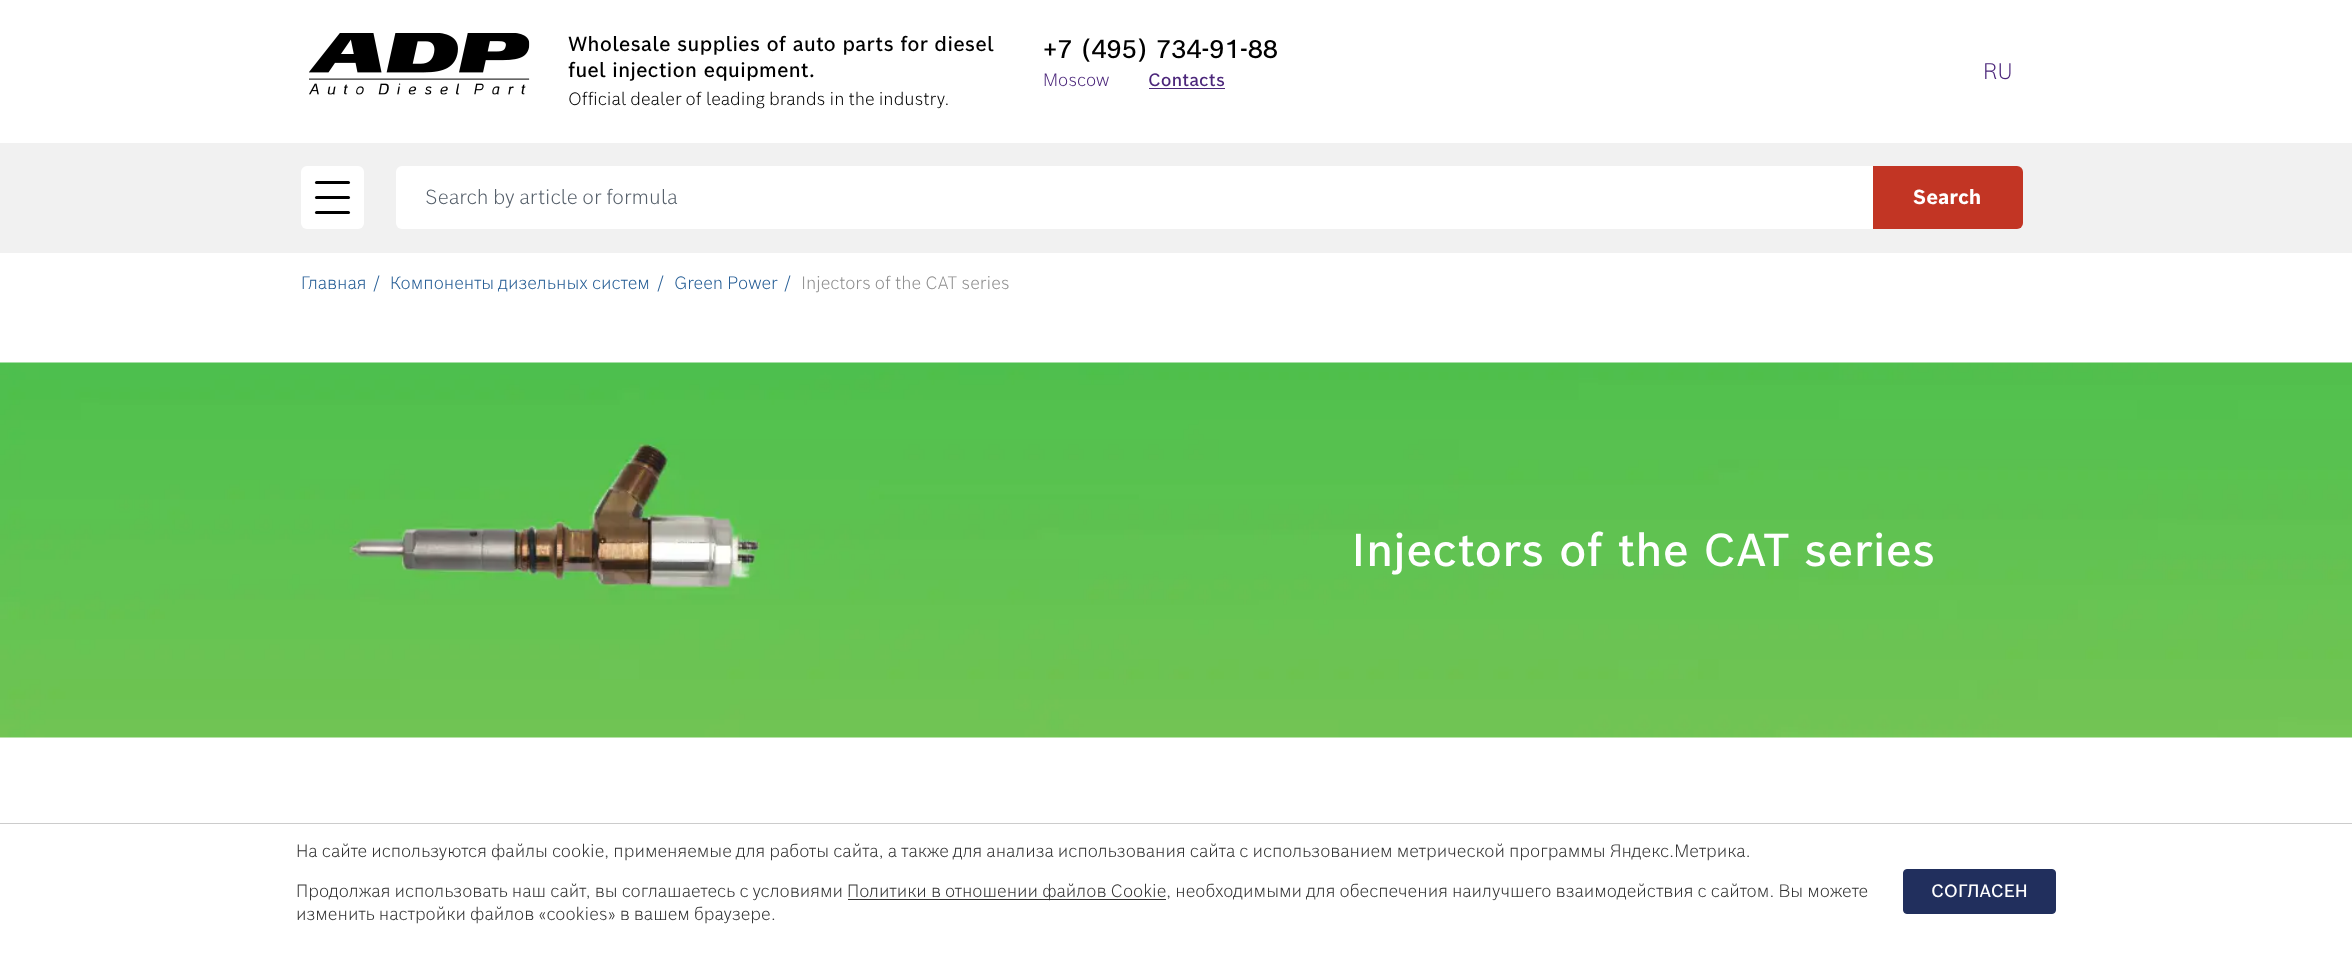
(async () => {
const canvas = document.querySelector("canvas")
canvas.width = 2352
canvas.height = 957
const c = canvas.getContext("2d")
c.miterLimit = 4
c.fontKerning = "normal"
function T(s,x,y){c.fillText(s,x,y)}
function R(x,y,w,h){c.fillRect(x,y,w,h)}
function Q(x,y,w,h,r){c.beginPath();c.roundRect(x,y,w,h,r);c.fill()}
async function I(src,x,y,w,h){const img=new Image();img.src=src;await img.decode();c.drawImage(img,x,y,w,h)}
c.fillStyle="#fff"
R(0,0,2352,957)
await I("1.png",309,33,221,62)
c.font="500 20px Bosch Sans"
c.fillStyle="#000"
T("Wholesale supplies of auto parts for diesel",568,51)
T("fuel injection equipment.",568,77)
c.font="300 17.5px Bosch Sans"
T("Official dealer of leading brands in the industry.",568,105)
c.font="500 25px Bosch Sans"
T("+7 (495) 734-91-88",1043,58)
c.font="300 17.5px Bosch Sans"
c.fillStyle="#4b267a"
T("Moscow",1043,86)
c.font="500 17.5px Bosch Sans"
T("Contacts",1148,86)
R(1149,88,76,1)
c.font="300 22px Bosch Sans"
T("RU",1983,79)
c.fillStyle="#f1f1f1"
R(0,143,2352,110)
c.fillStyle="#fff"
Q(301,166,63,63,6)
c.fillStyle="#000"
Q(315,181,35,3,1.5)
Q(315,196,35,3,1.5)
Q(315,211,35,3,1.5)
c.fillStyle="#fff"
c.beginPath()
c.roundRect(396,166,1477,63,[6,0,0,6])
c.fill()
c.font="300 20px Bosch Sans"
c.fillStyle="#545e69"
T("Search by article or formula",425,204)
c.fillStyle="#c23524"
c.beginPath()
c.roundRect(1873,166,150,63,[0,6,6,0])
c.fill()
c.font="bold 20px Bosch Sans"
c.fillStyle="#fff"
T("Search",1913,204)
c.font="300 17.5px Bosch Sans"
c.fillStyle="#265e96"
T("Главная",301,289)
T("/",373,289)
T("Компоненты дизельных систем",390,289)
T("/",657,289)
T("Green Power",674,289)
T("/",784,289)
c.fillStyle="#8e8e8e"
T("Injectors of the CAT series",801,289)
await I("2.png",0,362,2352,376)
c.font="500 45px Bosch Sans"
c.fillStyle="#fff"
T("Injectors of the CAT series",1351,566)
c.fillStyle="#ccc"
R(0,823,2352,1)
c.font="300 17.5px Bosch Sans"
c.fillStyle="#333"
T("На сайте используются файлы cookie, применяемые для работы сайта, а также для анализа использования сайта с использованием метрической программы Яндекс.Метрика.",296,857)
T("Продолжая использовать наш сайт, вы соглашаетесь с условиями",296,897)
R(848,899,318,1)
T("Политики в отношении файлов Cookie, необходимыми для обеспечения наилучшего взаимодействия с сайтом. Вы можете",847,897)
T("изменить настройки файлов «cookies» в вашем браузере.",296,920)
c.fillStyle="#212f5d"
c.beginPath()
c.roundRect(1903.5,869.5,152,44,3.5)
c.fill()
c.strokeStyle="#212f5d"
c.stroke()
c.font="500 17.5px Bosch Sans"
c.fillStyle="#fff"
T("СОГЛАСЕН",1931,897)
})()
